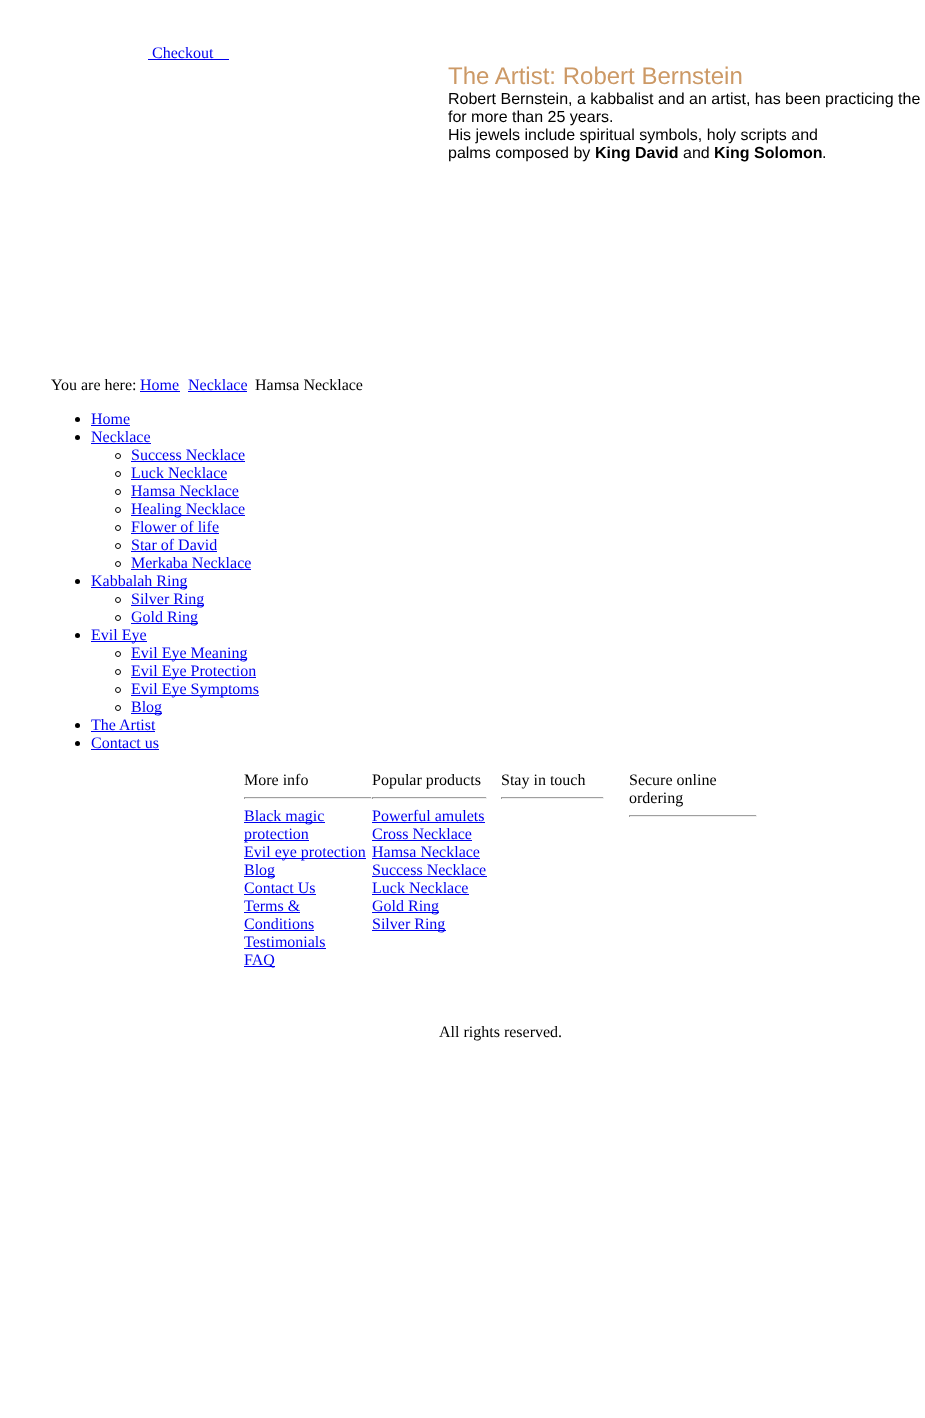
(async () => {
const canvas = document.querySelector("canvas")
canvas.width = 925
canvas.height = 1418
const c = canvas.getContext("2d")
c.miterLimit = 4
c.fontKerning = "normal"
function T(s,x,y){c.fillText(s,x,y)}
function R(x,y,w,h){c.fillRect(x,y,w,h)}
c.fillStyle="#fff"
R(0,0,925,1418)
c.font="16px Liberation Serif"
c.fillStyle="#00e"
T("Checkout",152,58)
R(148,59,81,1)
c.font="24px Liberation Sans"
c.fillStyle="#c96"
T("The Artist: Robert Bernstein",448,84)
c.font="16px Liberation Sans"
c.fillStyle="#000"
T("Robert Bernstein, a kabbalist and an artist, has been practicing the",448,104)
T("for more than 25 years.",448,122)
T("His jewels include spiritual symbols, holy scripts and",448,140)
T("palms composed by",448,158)
c.font="bold 16px Liberation Sans"
T("King David",595,158)
c.font="16px Liberation Sans"
T("and",683,158)
c.font="bold 16px Liberation Sans"
T("King Solomon",714,158)
c.font="16px Liberation Sans"
T(".",822,158)
c.font="16px Liberation Serif"
T("You are here:",51,390)
c.fillStyle="#00e"
T("Home",140,390)
R(140,391,40,1)
T("Necklace",188,390)
R(188,391,59,1)
c.fillStyle="#000"
T("Hamsa Necklace",255,390)
c.beginPath()
c.arc(77.5,419.5,2.5,0,7)
c.fill()
c.fillStyle="#00e"
T("Home",91,424)
R(91,425,39,1)
c.fillStyle="#000"
c.beginPath()
c.arc(77.5,437.5,2.5,0,7)
c.fill()
c.fillStyle="#00e"
T("Necklace",91,442)
R(91,443,60,1)
c.beginPath()
c.arc(118,456,2.5,0,7)
c.strokeStyle="#000"
c.stroke()
T("Success Necklace",131,460)
R(131,461,114,1)
c.beginPath()
c.arc(118,474,2.5,0,7)
c.stroke()
T("Luck Necklace",131,478)
R(131,479,96,1)
c.beginPath()
c.arc(118,492,2.5,0,7)
c.stroke()
T("Hamsa Necklace",131,496)
R(131,497,108,1)
c.beginPath()
c.arc(118,510,2.5,0,7)
c.stroke()
R(131,515,114,1)
T("Healing Necklace",131,514)
c.beginPath()
c.arc(118,528,2.5,0,7)
c.stroke()
T("Flower of life",131,532)
R(131,533,88,1)
c.beginPath()
c.arc(118,546,2.5,0,7)
c.stroke()
T("Star of David",131,550)
R(131,551,86,1)
c.beginPath()
c.arc(118,564,2.5,0,7)
c.stroke()
T("Merkaba Necklace",131,568)
R(131,569,120,1)
c.fillStyle="#000"
c.beginPath()
c.arc(77.5,581.5,2.5,0,7)
c.fill()
c.fillStyle="#00e"
R(91,587,96,1)
T("Kabbalah Ring",91,586)
c.beginPath()
c.arc(118,600,2.5,0,7)
c.stroke()
R(131,605,73,1)
T("Silver Ring",131,604)
c.beginPath()
c.arc(118,618,2.5,0,7)
c.stroke()
R(131,623,67,1)
T("Gold Ring",131,622)
c.fillStyle="#000"
c.beginPath()
c.arc(77.5,635.5,2.5,0,7)
c.fill()
c.fillStyle="#00e"
R(91,641,56,1)
T("Evil Eye",91,640)
c.beginPath()
c.arc(118,654,2.5,0,7)
c.stroke()
R(131,659,116,1)
T("Evil Eye Meaning",131,658)
c.beginPath()
c.arc(118,672,2.5,0,7)
c.stroke()
R(131,677,125,1)
T("Evil Eye Protection",131,676)
c.beginPath()
c.arc(118,690,2.5,0,7)
c.stroke()
R(131,695,128,1)
T("Evil Eye Symptoms",131,694)
c.beginPath()
c.arc(118,708,2.5,0,7)
c.stroke()
R(131,713,31,1)
T("Blog",131,712)
c.fillStyle="#000"
c.beginPath()
c.arc(77.5,725.5,2.5,0,7)
c.fill()
c.fillStyle="#00e"
T("The Artist",91,730)
R(91,731,64,1)
c.fillStyle="#000"
c.beginPath()
c.arc(77.5,743.5,2.5,0,7)
c.fill()
c.fillStyle="#00e"
T("Contact us",91,748)
R(91,749,68,1)
c.fillStyle="#000"
T("More info",244,785)
c.fillStyle="#9f9f9f"
R(244,797,243,1)
c.fillStyle="#eee"
R(371,797,1,2)
R(244,798,128,1)
c.fillStyle="#9f9f9f"
R(244,797,1,2)
c.fillStyle="#00e"
R(244,822,81,1)
T("Black magic",244,821)
R(244,840,65,1)
T("protection",244,839)
R(244,858,122,1)
T("Evil eye protection",244,857)
R(244,876,31,1)
T("Blog",244,875)
T("Contact Us",244,893)
R(244,894,72,1)
T("Terms &",244,911)
R(244,912,56,1)
T("Conditions",244,929)
R(244,930,70,1)
T("Testimonials",244,947)
R(244,948,82,1)
R(244,966,31,1)
T("FAQ",244,965)
c.fillStyle="#000"
T("Popular products",372,785)
c.fillStyle="#eee"
R(486,797,1,2)
R(372,798,115,1)
c.fillStyle="#9f9f9f"
R(372,797,1,2)
c.fillStyle="#00e"
T("Powerful amulets",372,821)
R(372,822,113,1)
T("Cross Necklace",372,839)
R(372,840,100,1)
T("Hamsa Necklace",372,857)
R(372,858,108,1)
T("Success Necklace",372,875)
R(372,876,115,1)
T("Luck Necklace",372,893)
R(372,894,97,1)
R(372,912,67,1)
T("Gold Ring",372,911)
R(372,930,74,1)
T("Silver Ring",372,929)
c.fillStyle="#000"
T("Stay in touch",501,785)
c.fillStyle="#9f9f9f"
R(501,797,103,1)
c.fillStyle="#eee"
R(603,797,1,2)
R(501,798,103,1)
c.fillStyle="#9f9f9f"
R(501,797,1,2)
c.fillStyle="#000"
T("Secure online",629,785)
T("ordering",629,803)
c.fillStyle="#9f9f9f"
R(629,815,128,1)
c.fillStyle="#eee"
R(756,815,1,2)
R(629,816,128,1)
c.fillStyle="#9f9f9f"
R(629,815,1,2)
c.fillStyle="#000"
T("All rights reserved.",439,1037)
})()
